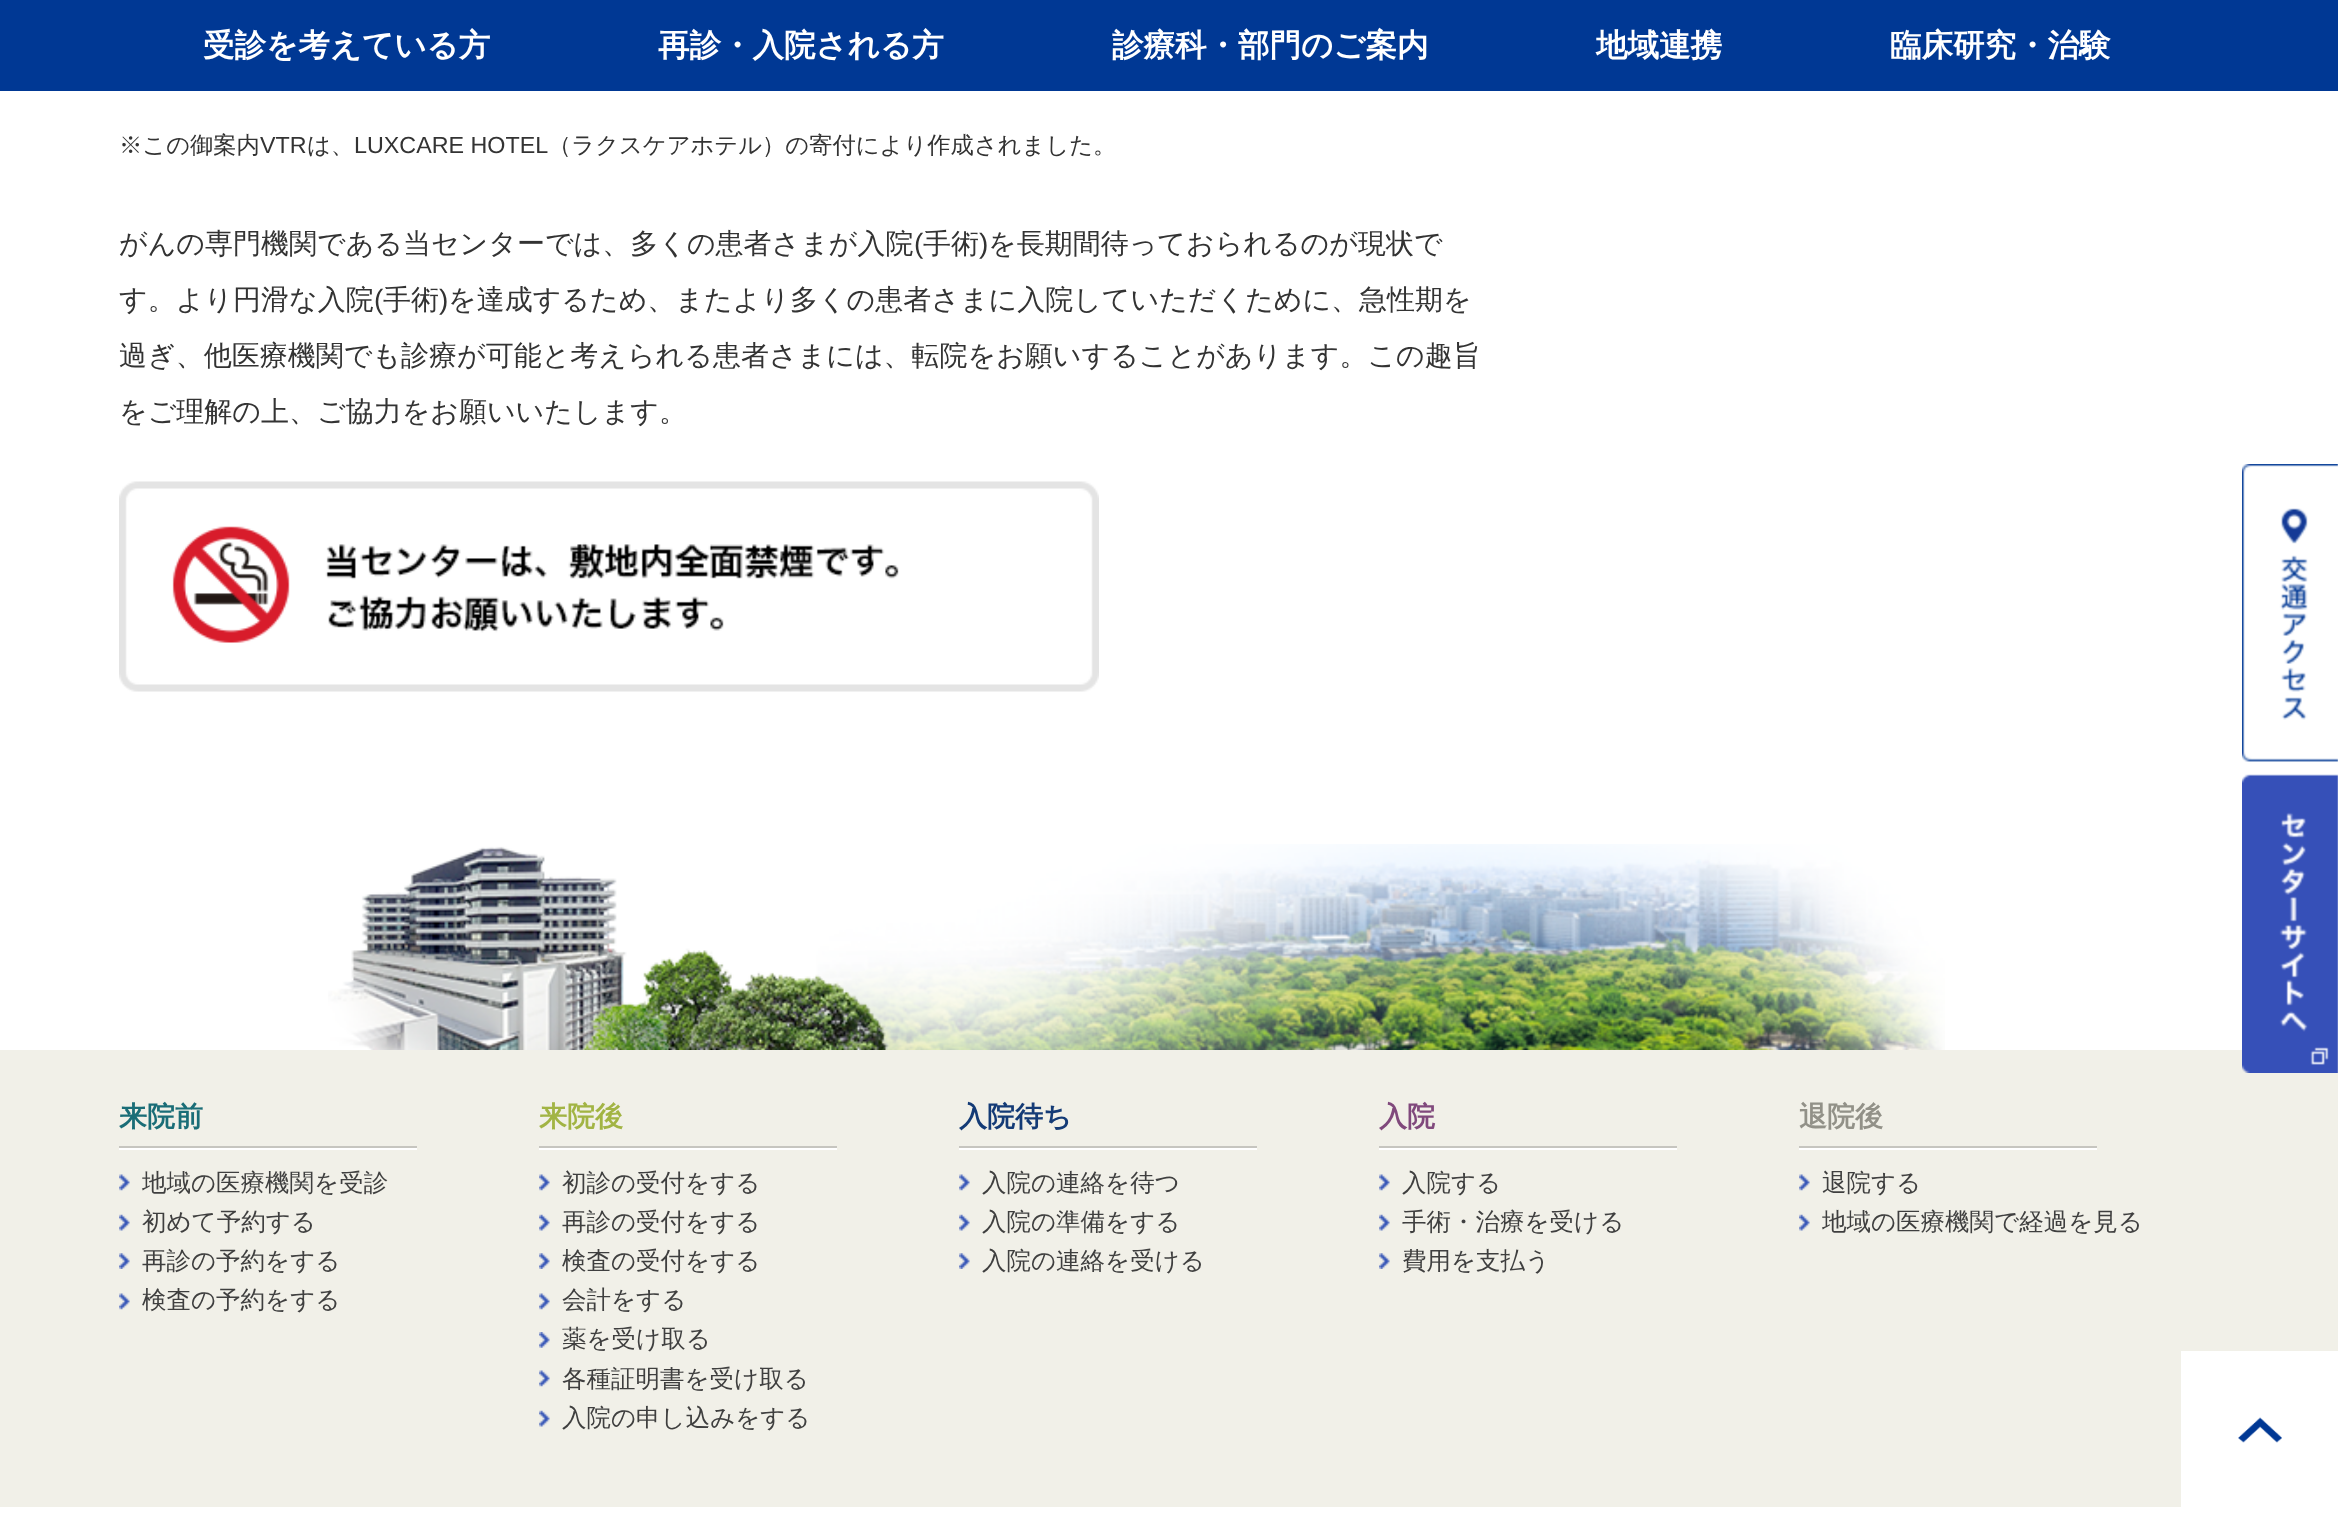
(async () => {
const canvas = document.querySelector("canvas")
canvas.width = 2338
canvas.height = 1536
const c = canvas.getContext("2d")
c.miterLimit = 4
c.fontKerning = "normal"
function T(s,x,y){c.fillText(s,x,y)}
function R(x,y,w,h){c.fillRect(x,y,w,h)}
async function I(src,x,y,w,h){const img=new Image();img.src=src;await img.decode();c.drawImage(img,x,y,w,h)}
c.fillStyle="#fff"
R(0,0,2338,1536)
c.fillStyle="#003894"
R(0,0,2338,91)
c.font="bold 31.5px WenQuanYi Zen Hei"
c.fillStyle="#fff"
T("受診を考えている方",203,56)
T("再診・入院される方",658,56)
T("診療科・部門のご案内",1112,56)
T("地域連携",1596,56)
T("臨床研究・治験",1890,56)
await I("1.png",328,844,1617,206)
c.font="500 23.3px WenQuanYi Zen Hei"
c.fillStyle="#333"
T("※この御案内",119,153)
c.font="23.3px Liberation Sans"
T("VTR",260,153)
c.font="500 23.3px WenQuanYi Zen Hei"
T("は、",307,153)
c.font="23.3px Liberation Sans"
T("LUXCARE HOTEL",354,153)
c.font="500 23.3px WenQuanYi Zen Hei"
T("（ラクスケアホテル）の寄付により作成されました。",548,153)
c.font="500 28px WenQuanYi Zen Hei"
T("がんの専門機関である当センターでは、多くの患者さまが入院",119,253)
c.font="28px Liberation Sans"
T("(",914,253)
c.font="500 28px WenQuanYi Zen Hei"
T("手術",923,253)
c.font="28px Liberation Sans"
T(")",979,253)
c.font="500 28px WenQuanYi Zen Hei"
T("を長期間待っておられるのが現状で",988,253)
T("す。より円滑な入院",119,309)
c.font="28px Liberation Sans"
T("(",374,309)
c.font="500 28px WenQuanYi Zen Hei"
T("手術",383,309)
c.font="28px Liberation Sans"
T(")",439,309)
c.font="500 28px WenQuanYi Zen Hei"
T("を達成するため、またより多くの患者さまに入院していただくために、急性期を",448,309)
T("過ぎ、他医療機関でも診療が可能と考えられる患者さまには、転院をお願いすることがあります。この趣旨",119,365)
T("をご理解の上、ご協力をお願いいたします。",119,421)
await I("2.png",119,481,980,211)
await I("3.png",2242,464,96,298)
c.fillStyle="#f1f0e8"
R(0,1050,2338,457)
await I("4.png",2242,774,96,299)
c.font="bold 28px WenQuanYi Zen Hei"
c.fillStyle="#1a6d77"
T("来院前",119,1126)
c.fillStyle="#fff"
R(119,1148,298,2)
c.fillStyle="#c6c5bf"
R(119,1146,298,2)
await I("5.png",119,1174,11,17)
c.font="500 24.5px WenQuanYi Zen Hei"
c.fillStyle="#3f3f3f"
T("地域の医療機関を受診",142,1191)
await I("6.png",119,1214,11,17)
T("初めて予約する",142,1230)
await I("7.png",119,1253,11,16)
T("再診の予約をする",142,1269)
await I("5.png",119,1293,11,17)
T("検査の予約をする",142,1308)
c.font="bold 28px WenQuanYi Zen Hei"
c.fillStyle="#a2b444"
T("来院後",539,1126)
c.fillStyle="#fff"
R(539,1148,298,2)
c.fillStyle="#c6c5bf"
R(539,1146,298,2)
await I("8.png",539,1174,11,17)
c.font="500 24.5px WenQuanYi Zen Hei"
c.fillStyle="#3f3f3f"
T("初診の受付をする",562,1191)
await I("9.png",539,1214,11,17)
T("再診の受付をする",562,1230)
await I("10.png",539,1253,11,16)
T("検査の受付をする",562,1269)
await I("8.png",539,1293,11,17)
T("会計をする",562,1308)
await I("11.png",539,1332,11,16)
T("薬を受け取る",562,1347)
await I("8.png",539,1370,11,17)
T("各種証明書を受け取る",562,1387)
await I("9.png",539,1410,11,17)
T("入院の申し込みをする",562,1426)
c.font="bold 28px WenQuanYi Zen Hei"
c.fillStyle="#143b76"
T("入院待ち",959,1126)
c.fillStyle="#fff"
R(959,1148,298,2)
c.fillStyle="#c6c5bf"
R(959,1146,298,2)
await I("8.png",959,1174,11,17)
c.font="500 24.5px WenQuanYi Zen Hei"
c.fillStyle="#3f3f3f"
T("入院の連絡を待つ",982,1191)
await I("9.png",959,1214,11,17)
T("入院の準備をする",982,1230)
await I("10.png",959,1253,11,16)
T("入院の連絡を受ける",982,1269)
c.font="bold 28px WenQuanYi Zen Hei"
c.fillStyle="#80497c"
T("入院",1379,1126)
c.fillStyle="#fff"
R(1379,1148,298,2)
c.fillStyle="#c6c5bf"
R(1379,1146,298,2)
await I("8.png",1379,1174,11,17)
c.font="500 24.5px WenQuanYi Zen Hei"
c.fillStyle="#3f3f3f"
T("入院する",1402,1191)
await I("9.png",1379,1214,11,17)
T("手術・治療を受ける",1402,1230)
await I("10.png",1379,1253,11,16)
T("費用を支払う",1402,1269)
c.font="bold 28px WenQuanYi Zen Hei"
c.fillStyle="#929188"
T("退院後",1799,1126)
c.fillStyle="#fff"
R(1799,1148,298,2)
c.fillStyle="#c6c5bf"
R(1799,1146,298,2)
await I("8.png",1799,1174,11,17)
c.font="500 24.5px WenQuanYi Zen Hei"
c.fillStyle="#3f3f3f"
T("退院する",1822,1191)
await I("9.png",1799,1214,11,17)
T("地域の医療機関で経過を見る",1822,1230)
c.fillStyle="#fff"
R(2181,1351,157,156)
await I("12.png",2238,1417,44,26)
})()
